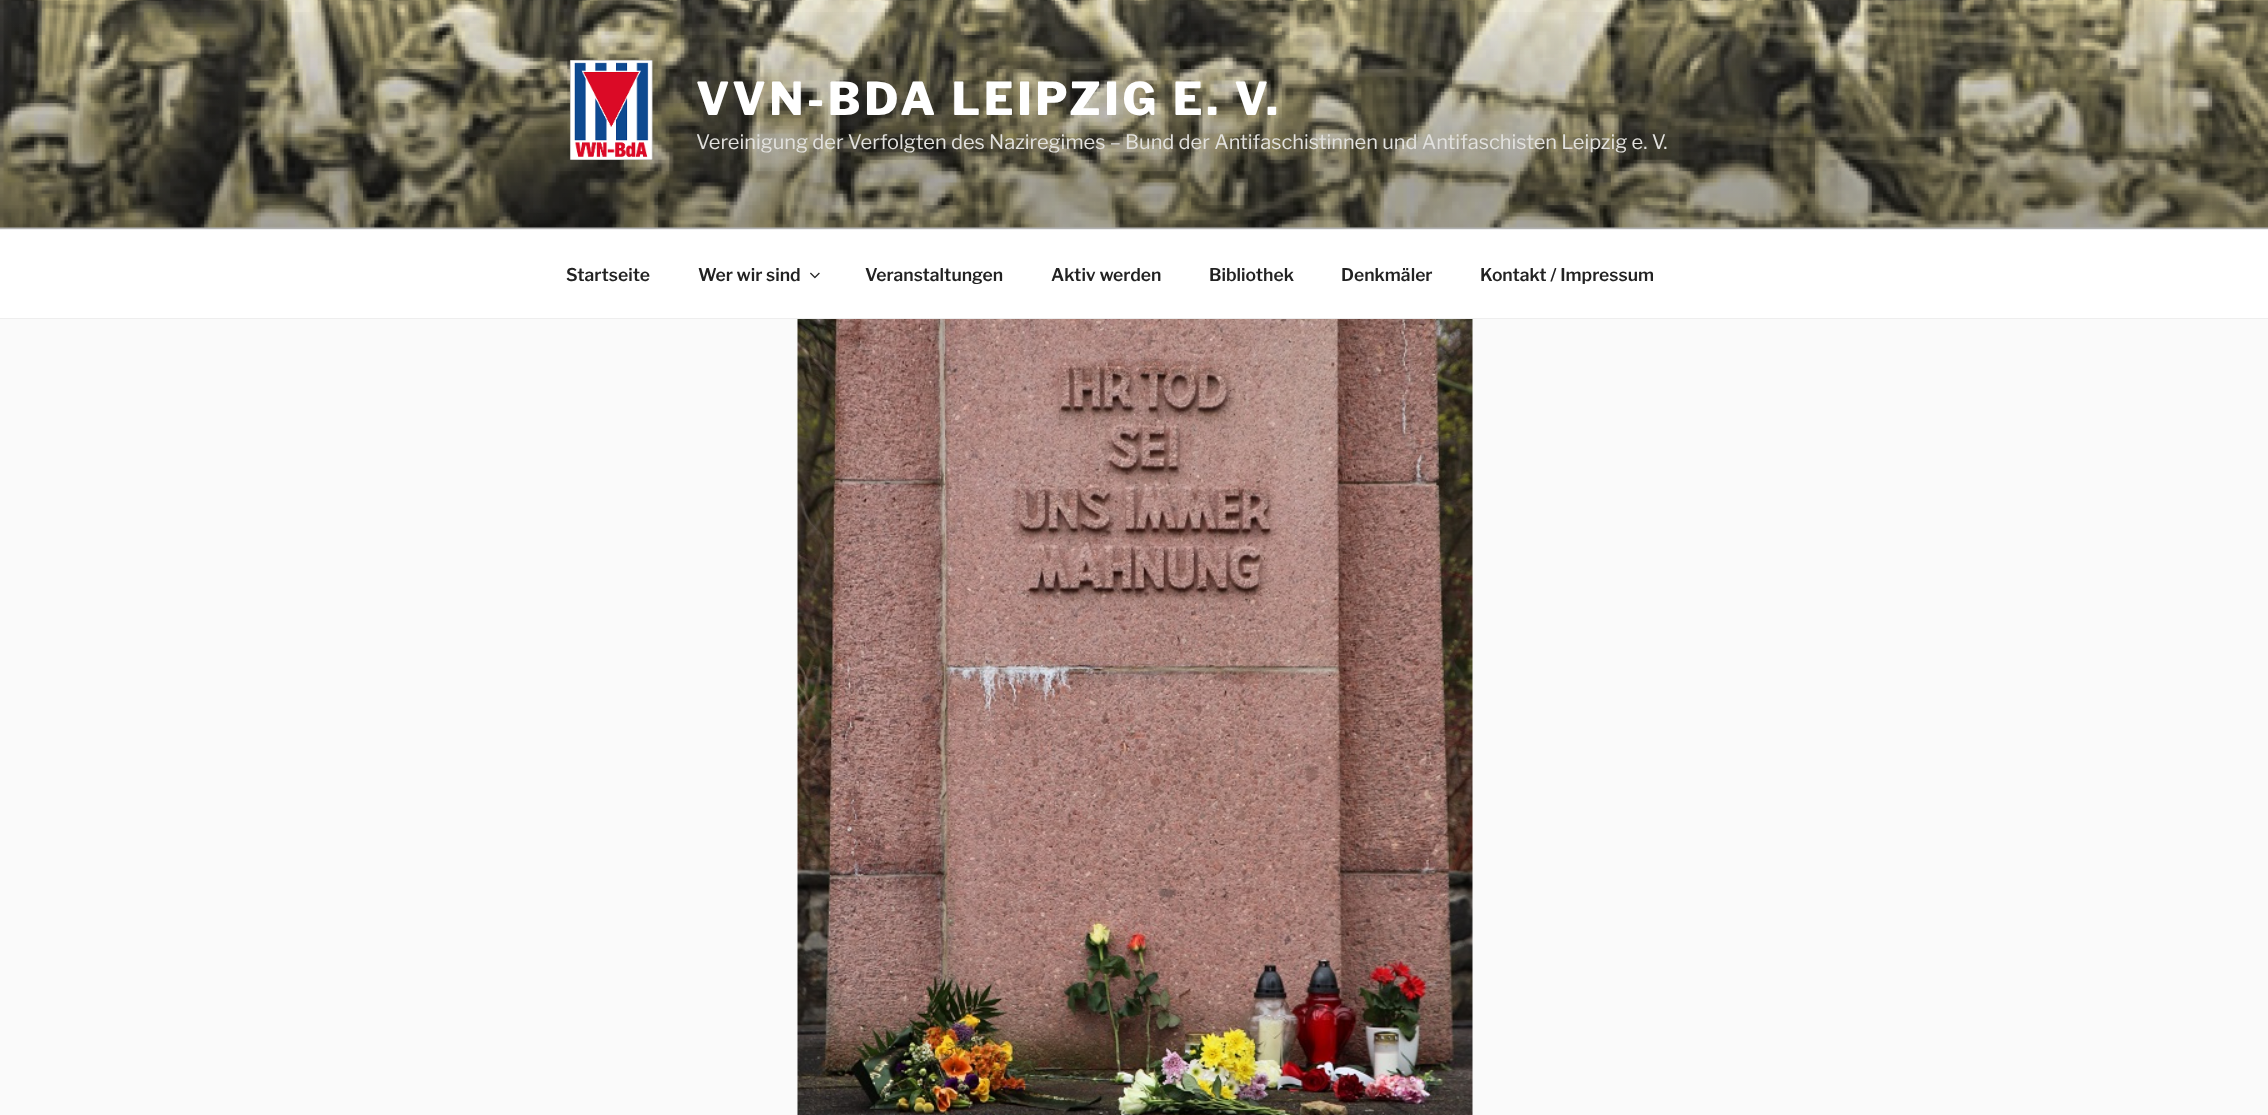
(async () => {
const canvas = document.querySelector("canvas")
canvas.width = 2268
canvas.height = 1115
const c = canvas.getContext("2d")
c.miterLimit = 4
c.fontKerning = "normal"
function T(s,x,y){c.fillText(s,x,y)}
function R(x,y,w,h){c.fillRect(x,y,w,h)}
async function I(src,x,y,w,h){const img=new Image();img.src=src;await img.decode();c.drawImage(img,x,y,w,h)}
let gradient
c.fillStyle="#fafafa"
R(0,0,2268,1115)
await I("1.png",0,0,2268,228)
gradient = c.createLinearGradient(1134,0,1134,229)
gradient.addColorStop(0,"#00000000")
gradient.addColorStop(.75,"#0000004d")
gradient.addColorStop(1,"#0000004d")
c.fillStyle = gradient
R(0,12,2268,217)
await I("2.png",570,60,83,100)
c.letterSpacing="3.6px"
c.font="800 45px Libre Franklin"
c.fillStyle="#fff"
T("VVN-BDA LEIPZIG E. V.",696,115)
c.letterSpacing="0px"
c.font="20px Libre Franklin"
c.fillStyle="#e2e1de"
T("Vereinigung der Verfolgten des Naziregimes – Bund der Antifaschistinnen und Antifaschisten Leipzig e. V.",696,149)
c.fillStyle="#fff"
R(0,230,2268,88)
c.fillStyle="#eee"
R(0,229,2268,1)
R(0,318,2268,1)
c.font="600 17.5px Libre Franklin"
c.fillStyle="#222"
T("Startseite",566,281)
T("Wer wir sind",698,281)
await I("3.png",810,272,10,7)
T("Veranstaltungen",865,281)
T("Aktiv werden",1051,281)
T("Bibliothek",1209,281)
T("Denkmäler",1341,281)
T("Kontakt / Impressum",1480,281)
await I("4.png",797,319,676,796)
})()
